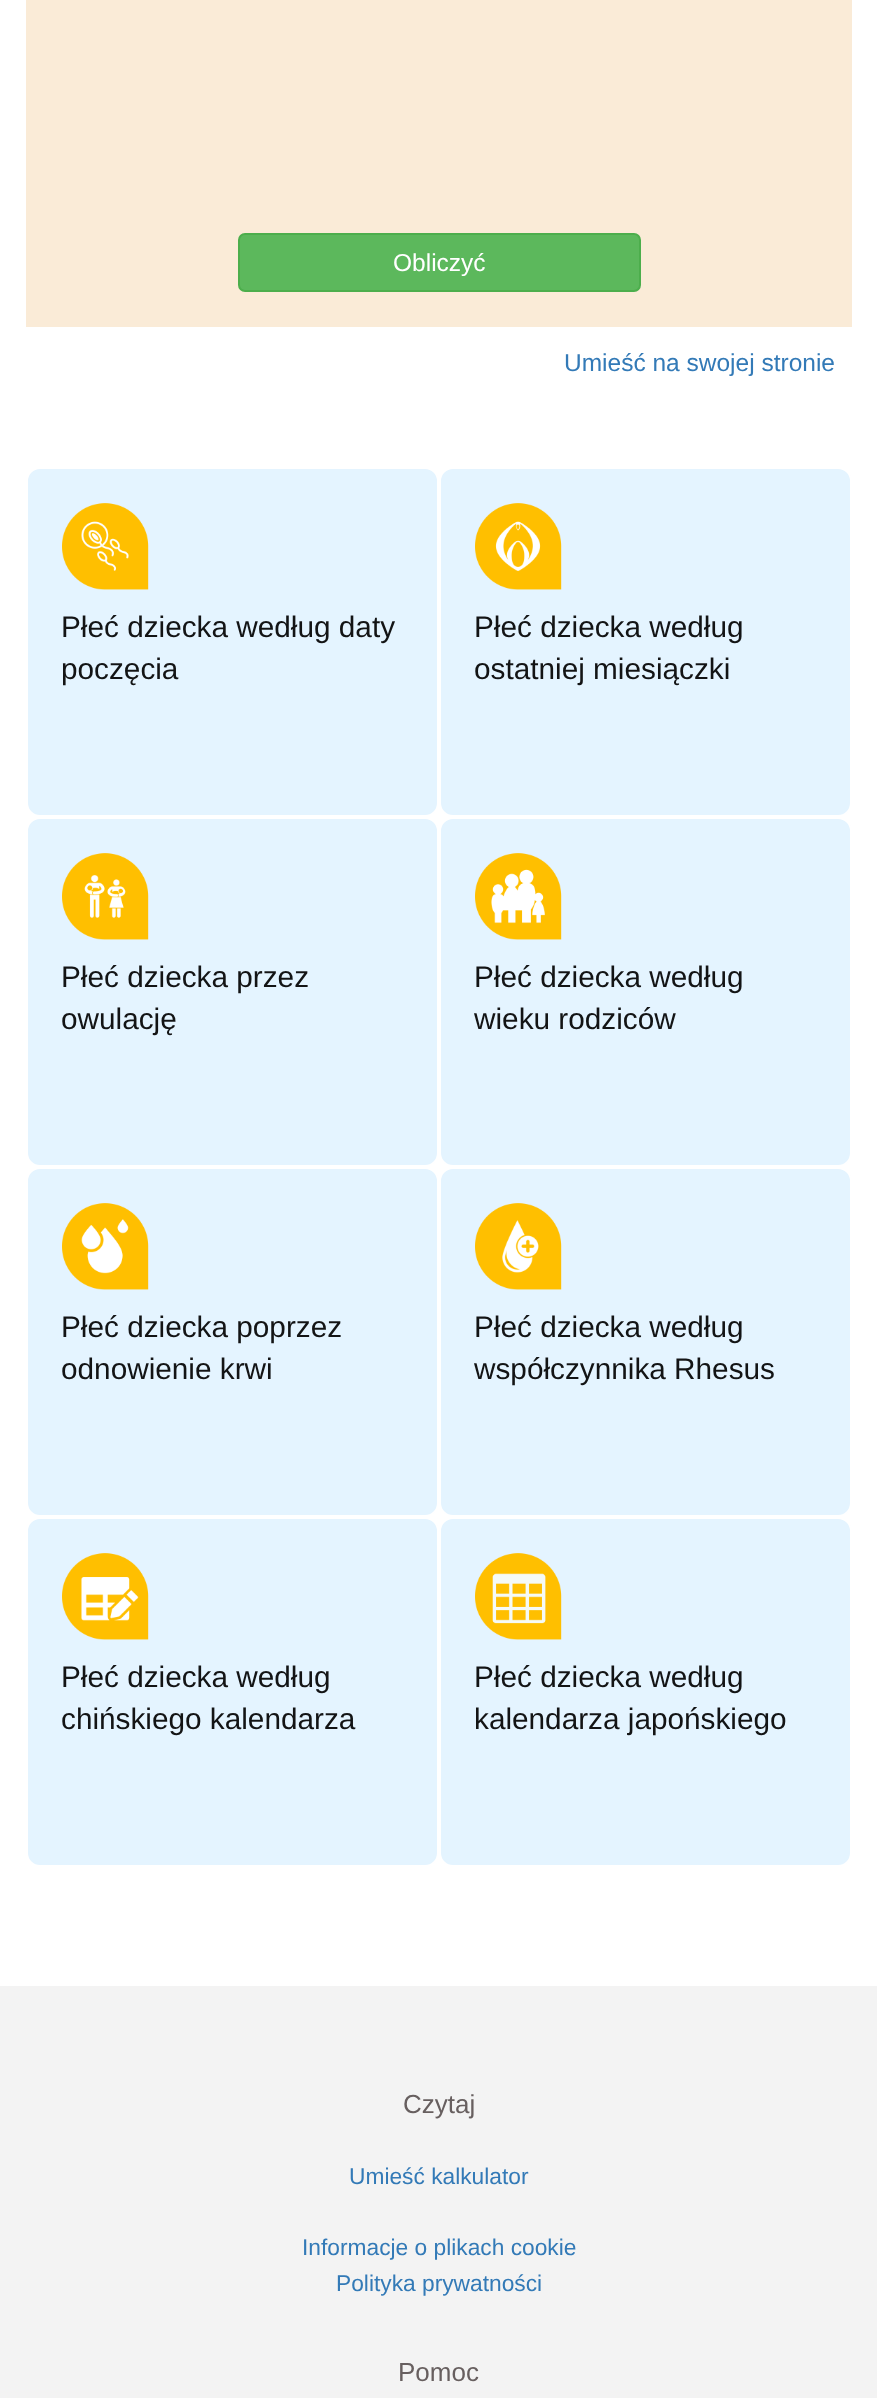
(async () => {
const canvas = document.querySelector("canvas")
canvas.width = 877
canvas.height = 2398
const c = canvas.getContext("2d")
c.miterLimit = 4
c.fontKerning = "normal"
function T(s,x,y){c.fillText(s,x,y)}
function R(x,y,w,h){c.fillRect(x,y,w,h)}
async function I(src,x,y,w,h){const img=new Image();img.src=src;await img.decode();c.drawImage(img,x,y,w,h)}
c.fillStyle="#fff"
R(0,0,877,2398)
c.fillStyle="#faebd7"
R(26,0,826,327)
c.fillStyle="#5cb85c"
c.beginPath()
c.roundRect(239,234,401,57,6)
c.fill()
c.strokeStyle="#4cae4c"
c.lineWidth=2
c.stroke()
c.font="24.5px Liberation Sans"
c.fillStyle="#fff"
T("Obliczyć",393,271)
c.fillStyle="#337ab7"
T("Umieść na swojej stronie",564,371)
c.fillStyle="#e4f4ff"
c.beginPath()
c.roundRect(27,468,411,348,13)
c.fill()
c.strokeStyle="#fff"
c.stroke()
await I("1.png",62,503,87,87)
c.font="29.75px Liberation Sans"
c.fillStyle="#131415"
T("Płeć dziecka według daty",61,637)
T("poczęcia",61,679)
c.fillStyle="#e4f4ff"
c.beginPath()
c.roundRect(440,468,411,348,13)
c.fill()
c.stroke()
await I("2.png",475,503,87,87)
c.fillStyle="#131415"
T("Płeć dziecka według",474,637)
T("ostatniej miesiączki",474,679)
c.fillStyle="#e4f4ff"
c.beginPath()
c.roundRect(27,818,411,348,13)
c.fill()
c.stroke()
await I("3.png",62,853,87,87)
c.fillStyle="#131415"
T("Płeć dziecka przez",61,987)
T("owulację",61,1029)
c.fillStyle="#e4f4ff"
c.beginPath()
c.roundRect(440,818,411,348,13)
c.fill()
c.stroke()
await I("4.png",475,853,87,87)
c.fillStyle="#131415"
T("Płeć dziecka według",474,987)
T("wieku rodziców",474,1029)
c.fillStyle="#e4f4ff"
c.beginPath()
c.roundRect(27,1168,411,348,13)
c.fill()
c.stroke()
await I("5.png",62,1203,87,87)
c.fillStyle="#131415"
T("Płeć dziecka poprzez",61,1337)
T("odnowienie krwi",61,1379)
c.fillStyle="#e4f4ff"
c.beginPath()
c.roundRect(440,1168,411,348,13)
c.fill()
c.stroke()
await I("6.png",475,1203,87,87)
c.fillStyle="#131415"
T("Płeć dziecka według",474,1337)
T("współczynnika Rhesus",474,1379)
c.fillStyle="#e4f4ff"
c.beginPath()
c.roundRect(27,1518,411,348,13)
c.fill()
c.stroke()
await I("7.png",62,1553,87,87)
c.fillStyle="#131415"
T("Płeć dziecka według",61,1687)
T("chińskiego kalendarza",61,1729)
c.fillStyle="#e4f4ff"
c.beginPath()
c.roundRect(440,1518,411,348,13)
c.fill()
c.stroke()
await I("8.png",475,1553,87,87)
c.fillStyle="#131415"
T("Płeć dziecka według",474,1687)
T("kalendarza japońskiego",474,1729)
c.fillStyle="#f3f3f3"
R(0,1986,877,412)
c.font="26px Liberation Sans"
c.fillStyle="#675f5f"
T("Czytaj",403,2113)
c.font="22.75px Liberation Sans"
c.fillStyle="#337ab7"
T("Umieść kalkulator",349,2184)
T("Informacje o plikach cookie",302,2255)
T("Polityka prywatności",336,2291)
c.font="26px Liberation Sans"
c.fillStyle="#675f5f"
T("Pomoc",398,2381)
})()
